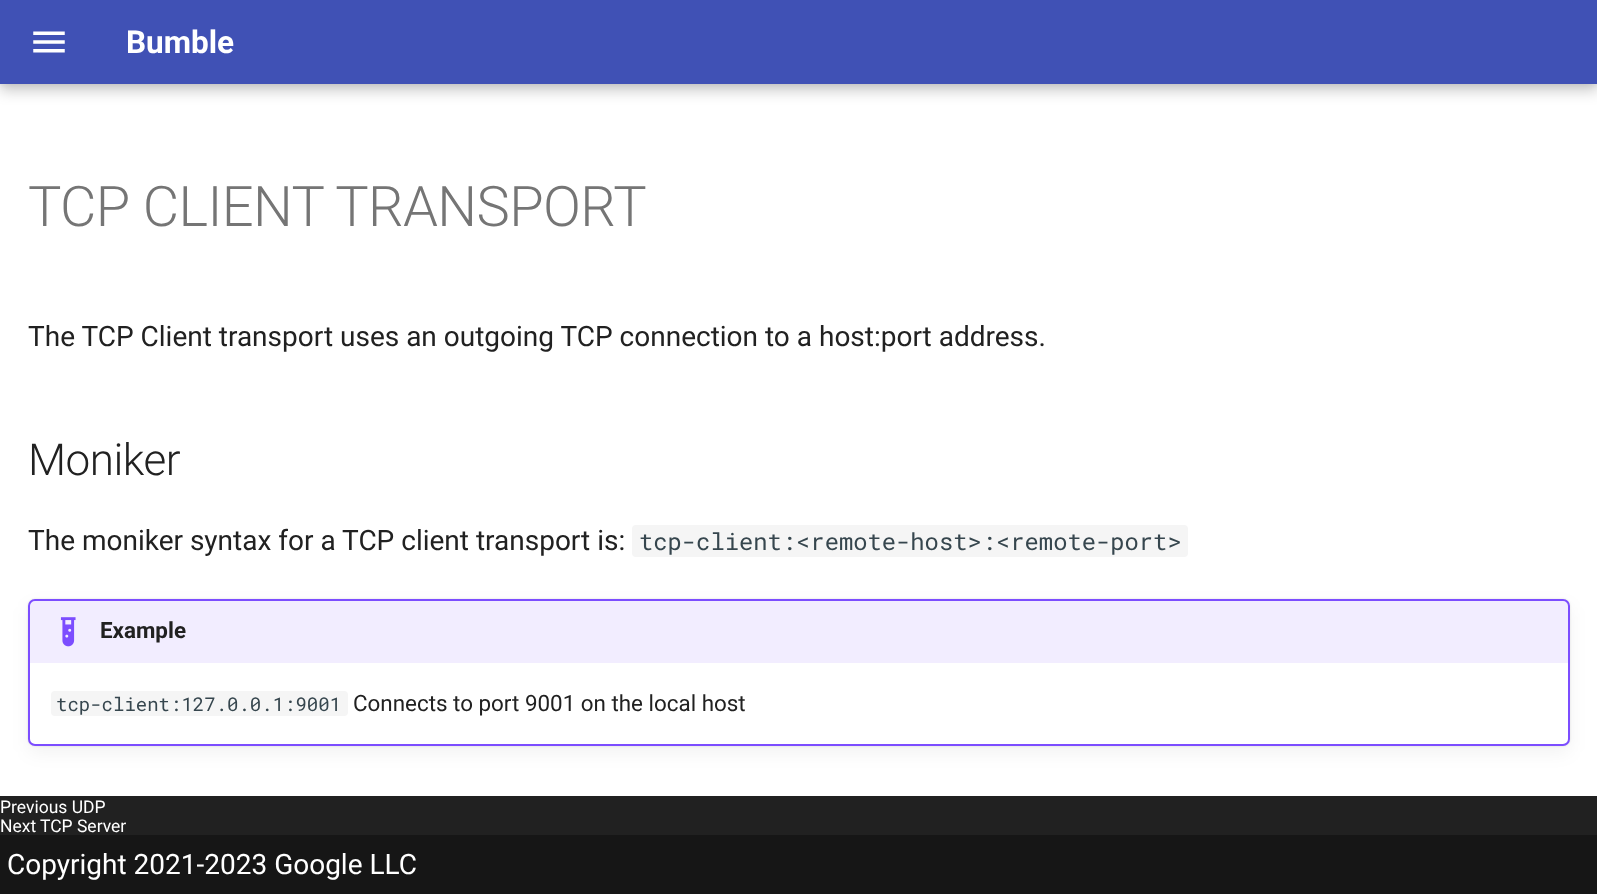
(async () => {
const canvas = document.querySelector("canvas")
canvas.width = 1597
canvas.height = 894
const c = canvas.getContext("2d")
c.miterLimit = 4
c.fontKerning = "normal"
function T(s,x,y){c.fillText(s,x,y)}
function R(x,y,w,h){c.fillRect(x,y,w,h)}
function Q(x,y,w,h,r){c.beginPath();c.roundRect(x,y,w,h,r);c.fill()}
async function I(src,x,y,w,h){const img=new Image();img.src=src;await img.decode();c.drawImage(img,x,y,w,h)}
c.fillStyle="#fff"
R(0,0,1597,894)
c.fillStyle="#00000033"
c.filter="blur(7px)"
c.beginPath()
c.rect(0,7,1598,84)
c.fill()
c.filter="none"
c.fillStyle="#0000001a"
c.filter="blur(3.5px)"
c.beginPath()
c.rect(0,0,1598,84)
c.fill()
c.filter="none"
c.fillStyle="#4051b5"
R(0,0,1597,84)
await I("1.png",33,31,32,22)
c.font="bold 31.5px Roboto"
c.fillStyle="#fff"
T("Bumble",126,53)
c.letterSpacing="-0.6px"
c.font="300 56px Roboto"
c.fillStyle="#757575"
T("TCP CLIENT TRANSPORT",28,226)
c.letterSpacing="0px"
c.font="28px Roboto"
c.fillStyle="#212121"
T("The TCP Client transport uses an outgoing TCP connection to a host:port address.",28,346)
c.letterSpacing="-0.5px"
c.font="300 44px Roboto"
T("Moniker",28,475)
c.letterSpacing="0px"
c.font="28px Roboto"
T("The moniker syntax for a TCP client transport is:",28,550)
c.fillStyle="#f5f5f5"
Q(632,525,556,32,4)
c.font="23.8px Roboto Mono"
c.fillStyle="#36464e"
T("tcp-client:<remote-host>:<remote-port>",639,550)
c.fillStyle="#0000001a"
c.filter="blur(1px)"
c.beginPath()
c.roundRect(28,599,1542,147,7)
c.fill()
c.filter="none"
c.fillStyle="#0000000d"
c.filter="blur(9px)"
c.beginPath()
c.roundRect(28,606,1542,147,7)
c.fill()
c.filter="none"
c.fillStyle="#fff"
c.beginPath()
c.roundRect(29,600,1540,145,6)
c.fill()
c.strokeStyle="#7c4dff"
c.lineWidth=2
c.stroke()
c.fillStyle="#7c4dff1a"
c.beginPath()
c.roundRect(30,600,1538,63,[4,4,0,0])
c.fill()
await I("2.png",60,617,16,30)
c.font="bold 22.4px Roboto"
c.fillStyle="#212121"
T("Example",100,638)
c.fillStyle="#f5f5f5"
Q(51,691,297,25,4)
c.font="19px Roboto Mono"
c.fillStyle="#36464e"
T("tcp-client:127.0.0.1:9001",56,711)
c.font="22.4px Roboto"
c.fillStyle="#212121"
T("Connects to port 9001 on the local host",353,711)
R(0,796,1597,39)
c.font="17.5px Roboto"
c.fillStyle="#fff"
T("Previous UDP",0,813)
T("Next",0,832)
T("TCP Server",40,832)
c.fillStyle="#161616"
R(0,835,1597,59)
c.font="28px Roboto"
c.fillStyle="#fff"
T("Copyright 2021-2023 Google LLC",7,874)
})()
